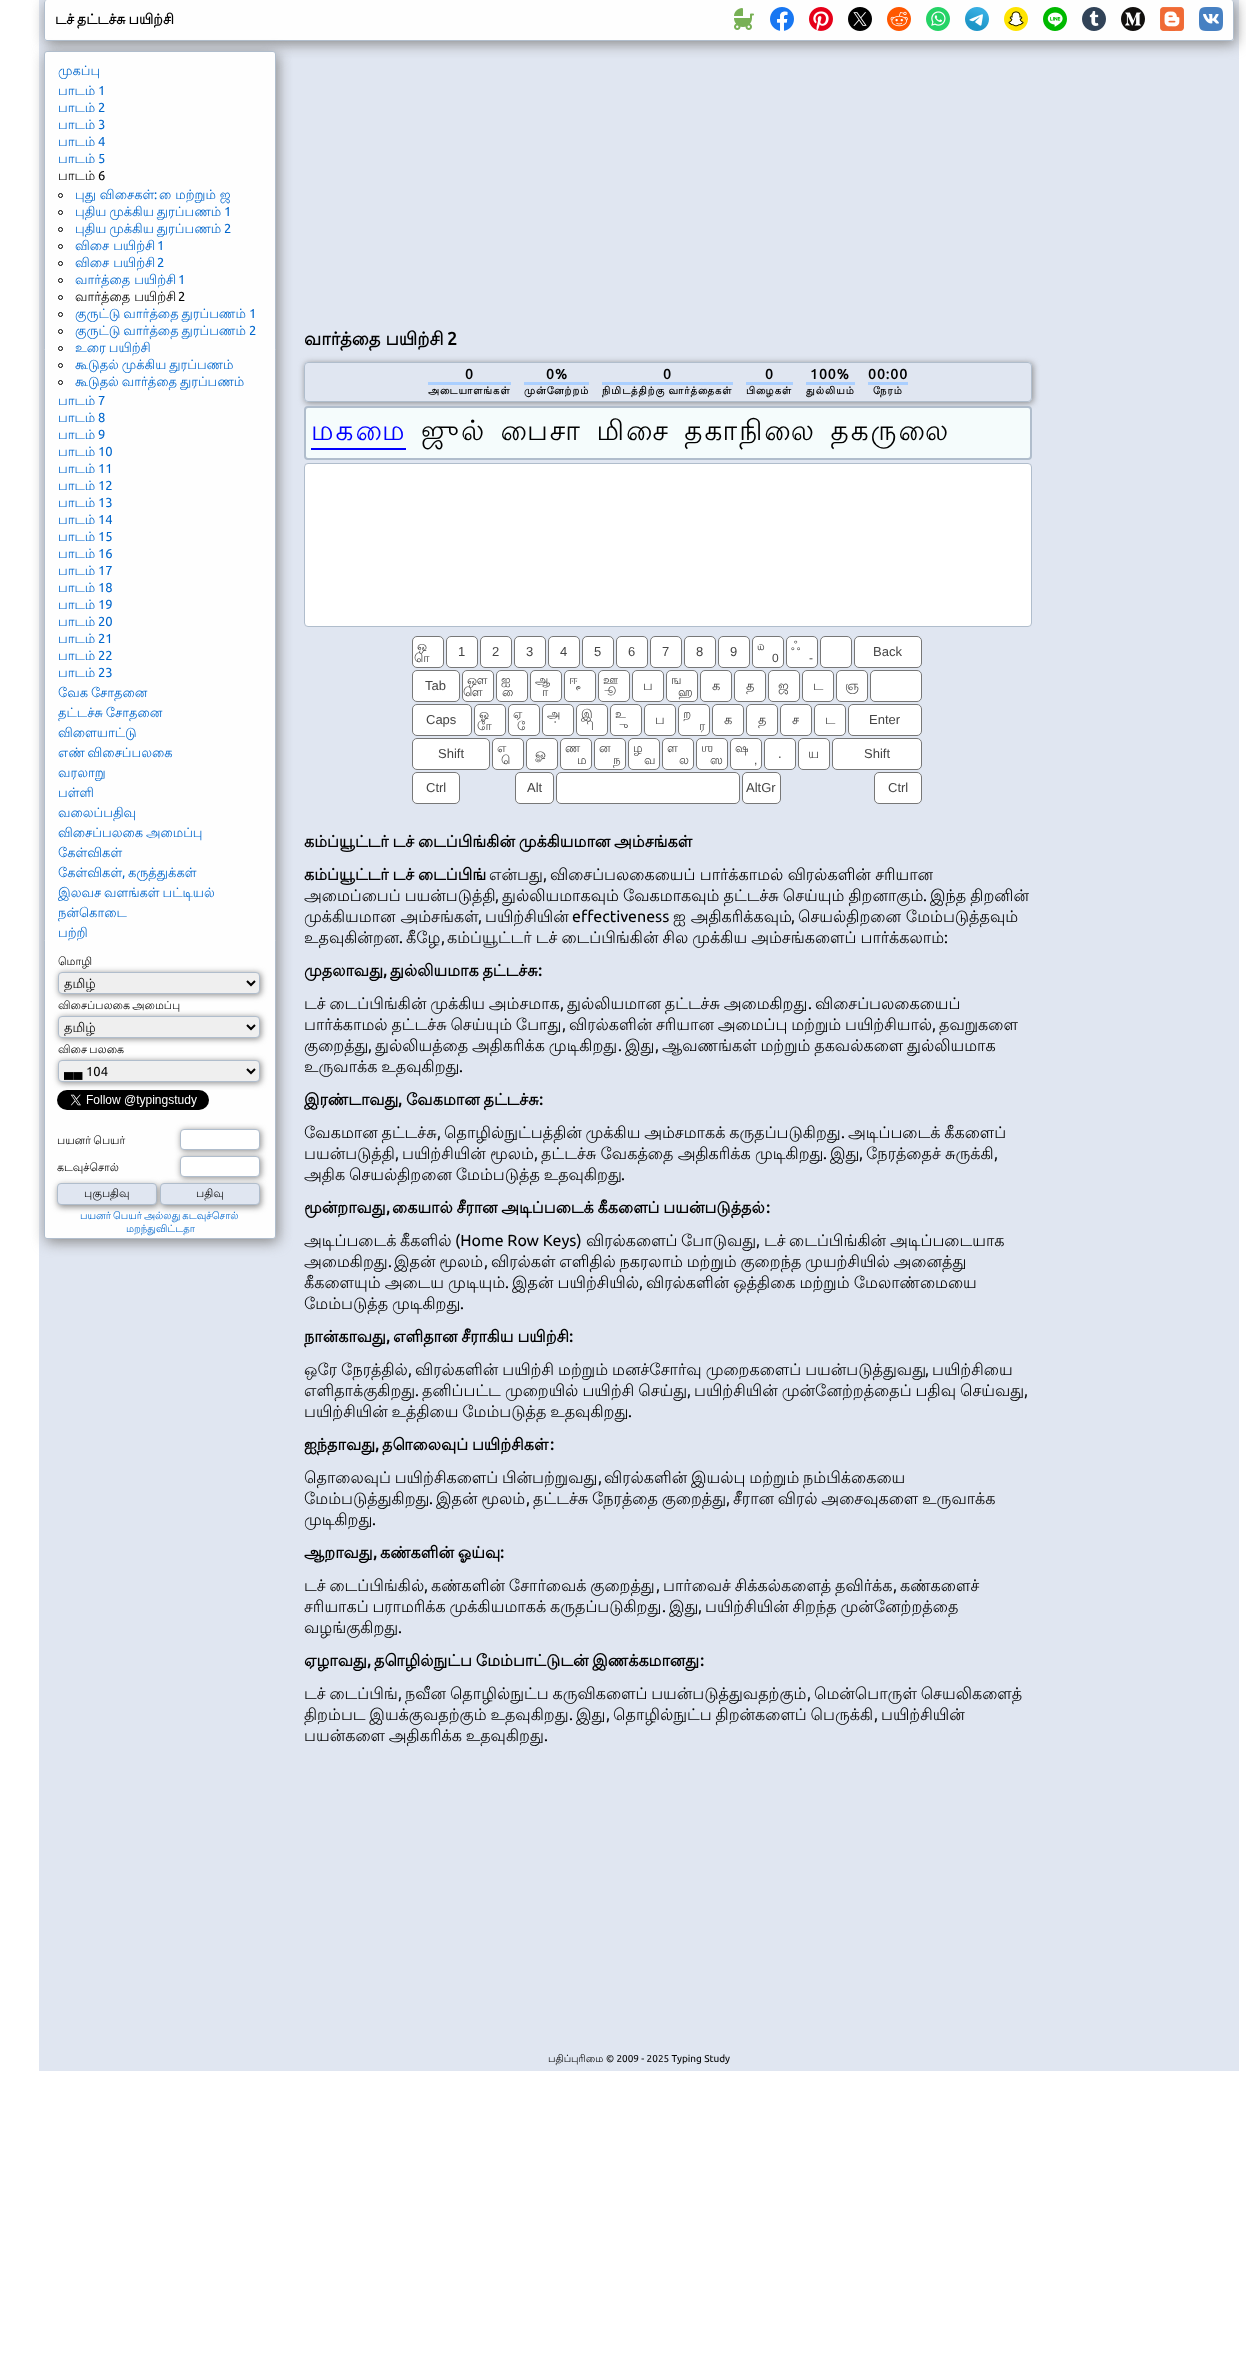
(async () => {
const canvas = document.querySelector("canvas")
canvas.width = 1246
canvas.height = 2378
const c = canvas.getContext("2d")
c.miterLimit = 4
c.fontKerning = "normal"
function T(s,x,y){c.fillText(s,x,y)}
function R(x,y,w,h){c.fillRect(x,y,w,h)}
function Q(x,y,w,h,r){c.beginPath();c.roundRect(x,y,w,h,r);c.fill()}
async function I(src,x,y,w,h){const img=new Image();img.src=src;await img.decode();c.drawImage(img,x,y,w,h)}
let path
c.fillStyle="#fff"
R(0,0,1246,2378)
c.fillStyle="#e0e6f1"
R(39,0,1200,2071)
c.fillStyle="#888"
c.filter="blur(7px)"
c.beginPath()
c.roundRect(46,3,1190,41,3)
c.fill()
c.filter="none"
c.fillStyle="#fefefe"
Q(44,0,1190,41,3)
c.fillStyle="#b0bdcc"
path = new Path2D("M47 0h1184c2 0 3 1 3 3v35c0 2-1 3-3 3h-1184c-2 0-3-1-3-3v-35c0-2 1-3 3-3zm0 0h1184c1 0 2 1 2 3v35c0 1-1 2-2 2h-1184c-1 0-2-1-2-2v-35c0-2 1-3 2-3z")
c.fill(path,"evenodd")
c.wordSpacing="-1px"
c.font="bold 14px Lohit Tamil"
c.fillStyle="#000"
T("டச் தட்டச்சு பயிற்சி",55,24)
await I("1.png",734,8,20,22)
await I("2.png",770,7,24,24)
await I("3.png",809,7,24,24)
await I("4.png",848,7,24,24)
await I("5.png",887,7,24,24)
await I("6.png",926,7,24,24)
await I("7.png",965,7,24,24)
await I("8.png",1004,7,24,24)
await I("9.png",1043,7,24,24)
await I("10.png",1082,7,24,24)
await I("11.png",1121,7,24,24)
await I("12.png",1160,7,24,24)
await I("13.png",1199,7,24,24)
c.fillStyle="#888"
c.filter="blur(7px)"
c.beginPath()
c.roundRect(46,54,232,1188,3)
c.fill()
c.filter="none"
c.fillStyle="#fefefe"
c.beginPath()
c.roundRect(44.5,51.5,231,1187,2.5)
c.fill()
c.strokeStyle="#b0bdcc"
c.stroke()
c.wordSpacing="0px"
c.font="13px Lohit Tamil"
c.fillStyle="#06c"
T("முகப்பு",58,75)
T("பாடம்",58,95)
c.font="13px Ubuntu"
T("1",98,95)
c.font="13px Lohit Tamil"
T("பாடம்",58,112)
c.font="13px Ubuntu"
T("2",98,112)
c.font="13px Lohit Tamil"
T("பாடம்",58,129)
c.font="13px Ubuntu"
T("3",98,129)
c.font="13px Lohit Tamil"
T("பாடம்",58,146)
c.font="13px Ubuntu"
T("4",98,146)
c.font="13px Lohit Tamil"
T("பாடம்",58,163)
c.font="13px Ubuntu"
T("5",98,163)
c.font="13px Lohit Tamil"
c.fillStyle="#000"
T("பாடம்",58,180)
c.font="13px Ubuntu"
T("6",98,180)
c.beginPath()
c.arc(60.5,195.5,2,0,7)
c.strokeStyle="#000"
c.stroke()
c.font="13px Lohit Tamil"
c.fillStyle="#06c"
T("புது விசைகள்",75,199)
c.font="13px Ubuntu"
T(":",154,199)
c.font="13px Lohit Tamil"
T("ை மற்றும் ஜ",159,199)
c.beginPath()
c.arc(60.5,212.5,2,0,7)
c.stroke()
c.wordSpacing="-1px"
T("புதிய முக்கிய துரப்பணம்",75,216)
c.wordSpacing="0px"
c.font="13px Ubuntu"
T("1",224,216)
c.beginPath()
c.arc(60.5,229.5,2,0,7)
c.stroke()
c.wordSpacing="-1px"
c.font="13px Lohit Tamil"
T("புதிய முக்கிய துரப்பணம்",75,233)
c.wordSpacing="0px"
c.font="13px Ubuntu"
T("2",224,233)
c.beginPath()
c.arc(60.5,246.5,2,0,7)
c.stroke()
c.font="13px Lohit Tamil"
T("விசை பயிற்சி",75,250)
c.font="13px Ubuntu"
T("1",157,250)
c.beginPath()
c.arc(60.5,263.5,2,0,7)
c.stroke()
c.font="13px Lohit Tamil"
T("விசை பயிற்சி",75,267)
c.font="13px Ubuntu"
T("2",157,267)
c.beginPath()
c.arc(60.5,280.5,2,0,7)
c.stroke()
c.font="13px Lohit Tamil"
T("வார்த்தை பயிற்சி",75,284)
c.font="13px Ubuntu"
T("1",178,284)
c.beginPath()
c.arc(60.5,297.5,2,0,7)
c.stroke()
c.font="13px Lohit Tamil"
c.fillStyle="#000"
T("வார்த்தை பயிற்சி",75,301)
c.font="13px Ubuntu"
T("2",178,301)
c.beginPath()
c.arc(60.5,314.5,2,0,7)
c.stroke()
c.wordSpacing="-1px"
c.font="13px Lohit Tamil"
c.fillStyle="#06c"
T("குருட்டு வார்த்தை துரப்பணம்",75,318)
c.wordSpacing="0px"
c.font="13px Ubuntu"
T("1",249,318)
c.beginPath()
c.arc(60.5,331.5,2,0,7)
c.stroke()
c.wordSpacing="-1px"
c.font="13px Lohit Tamil"
T("குருட்டு வார்த்தை துரப்பணம்",75,335)
c.wordSpacing="0px"
c.font="13px Ubuntu"
T("2",249,335)
c.beginPath()
c.arc(60.5,348.5,2,0,7)
c.stroke()
c.wordSpacing="-1px"
c.font="13px Lohit Tamil"
T("உரை பயிற்சி",75,352)
c.beginPath()
c.arc(60.5,365.5,2,0,7)
c.stroke()
T("கூடுதல் முக்கிய துரப்பணம்",75,369)
c.beginPath()
c.arc(60.5,382.5,2,0,7)
c.stroke()
T("கூடுதல் வார்த்தை துரப்பணம்",75,386)
c.wordSpacing="0px"
T("பாடம்",58,405)
c.font="13px Ubuntu"
T("7",98,405)
c.font="13px Lohit Tamil"
T("பாடம்",58,422)
c.font="13px Ubuntu"
T("8",98,422)
c.font="13px Lohit Tamil"
T("பாடம்",58,439)
c.font="13px Ubuntu"
T("9",98,439)
c.font="13px Lohit Tamil"
T("பாடம்",58,456)
c.font="13px Ubuntu"
T("10",98,456)
c.font="13px Lohit Tamil"
T("பாடம்",58,473)
c.font="13px Ubuntu"
T("11",98,473)
c.font="13px Lohit Tamil"
T("பாடம்",58,490)
c.font="13px Ubuntu"
T("12",98,490)
c.font="13px Lohit Tamil"
T("பாடம்",58,507)
c.font="13px Ubuntu"
T("13",98,507)
c.font="13px Lohit Tamil"
T("பாடம்",58,524)
c.font="13px Ubuntu"
T("14",98,524)
c.font="13px Lohit Tamil"
T("பாடம்",58,541)
c.font="13px Ubuntu"
T("15",98,541)
c.font="13px Lohit Tamil"
T("பாடம்",58,558)
c.font="13px Ubuntu"
T("16",98,558)
c.font="13px Lohit Tamil"
T("பாடம்",58,575)
c.font="13px Ubuntu"
T("17",98,575)
c.font="13px Lohit Tamil"
T("பாடம்",58,592)
c.font="13px Ubuntu"
T("18",98,592)
c.font="13px Lohit Tamil"
T("பாடம்",58,609)
c.font="13px Ubuntu"
T("19",98,609)
c.font="13px Lohit Tamil"
T("பாடம்",58,626)
c.font="13px Ubuntu"
T("20",98,626)
c.font="13px Lohit Tamil"
T("பாடம்",58,643)
c.font="13px Ubuntu"
T("21",98,643)
c.font="13px Lohit Tamil"
T("பாடம்",58,660)
c.font="13px Ubuntu"
T("22",98,660)
c.font="13px Lohit Tamil"
T("பாடம்",58,677)
c.font="13px Ubuntu"
T("23",98,677)
c.wordSpacing="-1px"
c.font="13px Lohit Tamil"
T("வேக சோதனை",58,697)
T("தட்டச்சு சோதனை",58,717)
c.wordSpacing="0px"
T("விளையாட்டு",58,737)
c.wordSpacing="-1px"
T("எண் விசைப்பலகை",58,757)
c.wordSpacing="0px"
T("வரலாறு",58,777)
T("பள்ளி",58,797)
T("வலைப்பதிவு",58,817)
c.wordSpacing="-1px"
T("விசைப்பலகை அமைப்பு",58,837)
c.wordSpacing="0px"
T("கேள்விகள்",58,857)
T("கேள்விகள்",58,877)
c.font="13px Ubuntu"
T(",",122,877)
c.font="13px Lohit Tamil"
T("கருத்துக்கள்",128,877)
c.wordSpacing="-1px"
T("இலவச வளங்கள் பட்டியல்",58,897)
c.wordSpacing="0px"
T("நன்கொடை",58,917)
T("பற்றி",58,937)
c.fillStyle="#888"
c.filter="blur(3px)"
c.beginPath()
c.roundRect(59,973,202,22,4)
c.fill()
c.filter="none"
c.font="11px Lohit Tamil"
c.fillStyle="#000"
T("மொழி",58,965)
c.fillStyle="#efefef"
c.beginPath()
c.roundRect(58.5,972.5,201,21,3.5)
c.fill()
c.strokeStyle="#b0bdcc"
c.stroke()
path = new Path2D("M247 981l4 4l4-4")
c.strokeStyle="#000"
c.lineWidth=2
c.stroke(path)
c.save()
c.beginPath()
c.rect(64,975,177,17)
c.clip()
c.font="13px Lohit Tamil"
c.fillStyle="#000"
T("தமிழ்",64,988)
c.restore()
c.fillStyle="#888"
c.filter="blur(3px)"
c.beginPath()
c.roundRect(59,1017,202,22,4)
c.fill()
c.filter="none"
c.wordSpacing="-1px"
c.fillStyle="#000"
T("விசைப்பலகை அமைப்பு",58,1009)
c.fillStyle="#efefef"
c.beginPath()
c.roundRect(58.5,1016.5,201,21,3.5)
c.fill()
c.strokeStyle="#b0bdcc"
c.lineWidth=1
c.stroke()
path = new Path2D("M247 1025l4 4l4-4")
c.strokeStyle="#000"
c.lineWidth=2
c.stroke(path)
c.save()
c.beginPath()
c.rect(64,1019,177,17)
c.clip()
c.wordSpacing="0px"
c.font="13px Lohit Tamil"
c.fillStyle="#000"
T("தமிழ்",64,1032)
c.restore()
c.fillStyle="#888"
c.filter="blur(3px)"
c.beginPath()
c.roundRect(59,1061,202,22,4)
c.fill()
c.filter="none"
c.fillStyle="#000"
T("விசை பலகை",58,1053)
c.fillStyle="#efefef"
c.beginPath()
c.roundRect(58.5,1060.5,201,21,3.5)
c.fill()
c.strokeStyle="#b0bdcc"
c.lineWidth=1
c.stroke()
path = new Path2D("M247 1069l4 4l4-4")
c.strokeStyle="#000"
c.lineWidth=2
c.stroke(path)
c.wordSpacing="0px"
c.font="13px Liberation Sans"
c.fillStyle="#000"
T("▄▄",64,1076)
c.font="13px Ubuntu"
T("104",86,1076)
await I("14.png",57,1090,152,20)
c.wordSpacing="-1px"
c.font="11px Lohit Tamil"
T("பயனர் பெயர்",57,1144)
c.fillStyle="#888"
c.filter="blur(3px)"
c.beginPath()
c.roundRect(181,1130,80,21,4)
c.fill()
c.filter="none"
c.fillStyle="#fff"
c.beginPath()
c.roundRect(180.5,1129.5,79,20,3.5)
c.fill()
c.strokeStyle="#b0bdcc"
c.lineWidth=1
c.stroke()
c.wordSpacing="0px"
c.fillStyle="#000"
T("கடவுச்சொல்",57,1171)
c.fillStyle="#888"
c.filter="blur(3px)"
c.beginPath()
c.roundRect(181,1157,80,21,4)
c.fill()
c.filter="none"
c.fillStyle="#fff"
c.beginPath()
c.roundRect(180.5,1156.5,79,20,3.5)
c.fill()
c.stroke()
c.fillStyle="#888"
c.filter="blur(3px)"
c.beginPath()
c.roundRect(58,1185,100,22,4)
c.fill()
c.filter="none"
c.fillStyle="#e0e6f1"
c.beginPath()
c.roundRect(57.5,1183.5,99,21,3.5)
c.fill()
c.stroke()
c.fillStyle="#000"
T("புகுபதிவு",84,1197)
c.fillStyle="#888"
c.filter="blur(3px)"
c.beginPath()
c.roundRect(161,1185,100,22,4)
c.fill()
c.filter="none"
c.fillStyle="#e0e6f1"
c.beginPath()
c.roundRect(160.5,1183.5,99,21,3.5)
c.fill()
c.stroke()
c.fillStyle="#000"
T("பதிவு",196,1197)
c.wordSpacing="-1px"
c.font="10px Lohit Tamil"
c.fillStyle="#06c"
T("பயனர் பெயர் அல்லது கடவுச்சொல்",80,1219)
c.wordSpacing="0px"
T("மறந்துவிட்டதா",126,1232)
c.wordSpacing="-0.5px"
c.font="bold 18px Lohit Tamil"
c.fillStyle="#000"
T("வார்த்தை பயிற்சி",304,345)
c.wordSpacing="0px"
c.font="bold 18px Ubuntu"
T("2",447,345)
c.save()
path = new Path2D("M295 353h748v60h-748zm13 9h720c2 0 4 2 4 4v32c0 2-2 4-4 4h-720c-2 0-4-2-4-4v-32c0-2 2-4 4-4z")
c.clip(path,"evenodd")
c.fillStyle="#888"
c.filter="blur(3px)"
c.beginPath()
c.roundRect(305,363,728,40,4)
c.fill()
c.filter="none"
c.restore()
c.beginPath()
c.roundRect(304.5,362.5,727,39,3.5)
c.stroke()
c.letterSpacing="1px"
c.font="bold 14px Ubuntu"
T("0",465,379)
c.fillStyle="#aacfff"
R(428,382,83,3)
c.font="bold 10px Lohit Tamil"
c.fillStyle="#000"
T("அடையாளங்கள்",428,394)
c.font="bold 14px Ubuntu"
T("0%",546,379)
c.fillStyle="#aacfff"
R(524,382,65,3)
c.font="bold 10px Lohit Tamil"
c.fillStyle="#000"
T("முன்னேற்றம்",524,394)
c.font="bold 14px Ubuntu"
T("0",663,379)
c.fillStyle="#aacfff"
R(602,382,131,3)
c.wordSpacing="-1px"
c.font="bold 10px Lohit Tamil"
c.fillStyle="#000"
T("நிமிடத்திற்கு வார்த்தைகள்",602,394)
c.wordSpacing="0px"
c.font="bold 14px Ubuntu"
T("0",765,379)
c.fillStyle="#aacfff"
R(746,382,47,3)
c.font="bold 10px Lohit Tamil"
c.fillStyle="#000"
T("பிழைகள்",746,394)
c.font="bold 14px Ubuntu"
T("100%",810,379)
c.fillStyle="#aacfff"
R(806,382,49,3)
c.font="bold 10px Lohit Tamil"
c.fillStyle="#000"
T("துல்லியம்",806,394)
c.font="bold 14px Ubuntu"
T("00:00",868,379)
c.fillStyle="#aacfff"
R(868,382,40,3)
c.font="bold 10px Lohit Tamil"
c.fillStyle="#000"
T("நேரம்",873,394)
c.fillStyle="#f5fcfc"
c.beginPath()
c.roundRect(305,407,726,52,3)
c.fill()
c.lineWidth=2
c.stroke()
c.letterSpacing="2px"
c.font="28px Lohit Tamil"
c.fillStyle="#00f"
T("மகமை",311,440)
R(311,448,95,2)
c.wordSpacing="4px"
c.fillStyle="#000"
T("ஜுல் பைசா மிசை தகாநிலை தகருலை",421,440)
c.fillStyle="#fff"
c.beginPath()
c.roundRect(304.5,463.5,727,163,3.5)
c.fill()
c.lineWidth=1
c.stroke()
c.beginPath()
c.roundRect(412.5,636.5,31,31,4.5)
c.fill()
c.strokeStyle="#777"
c.stroke()
c.letterSpacing="0px"
c.wordSpacing="0px"
c.font="12px Lohit Tamil"
c.fillStyle="#444"
T("ஒ",417,650)
T("ொ",414,662)
c.fillStyle="#fff"
c.beginPath()
c.roundRect(446.5,636.5,31,31,4.5)
c.fill()
c.stroke()
c.font="13px Liberation Sans"
c.fillStyle="#444"
T("1",458,656)
c.fillStyle="#fff"
c.beginPath()
c.roundRect(480.5,636.5,31,31,4.5)
c.fill()
c.stroke()
c.fillStyle="#444"
T("2",492,656)
c.fillStyle="#fff"
c.beginPath()
c.roundRect(514.5,636.5,31,31,4.5)
c.fill()
c.stroke()
c.fillStyle="#444"
T("3",526,656)
c.fillStyle="#fff"
c.beginPath()
c.roundRect(548.5,636.5,31,31,4.5)
c.fill()
c.stroke()
c.fillStyle="#444"
T("4",560,656)
c.fillStyle="#fff"
c.beginPath()
c.roundRect(582.5,636.5,31,31,4.5)
c.fill()
c.stroke()
c.fillStyle="#444"
T("5",594,656)
c.fillStyle="#fff"
c.beginPath()
c.roundRect(616.5,636.5,31,31,4.5)
c.fill()
c.stroke()
c.fillStyle="#444"
T("6",628,656)
c.fillStyle="#fff"
c.beginPath()
c.roundRect(650.5,636.5,31,31,4.5)
c.fill()
c.stroke()
c.fillStyle="#444"
T("7",662,656)
c.fillStyle="#fff"
c.beginPath()
c.roundRect(684.5,636.5,31,31,4.5)
c.fill()
c.stroke()
c.fillStyle="#444"
T("8",696,656)
c.fillStyle="#fff"
c.beginPath()
c.roundRect(718.5,636.5,31,31,4.5)
c.fill()
c.stroke()
c.fillStyle="#444"
T("9",730,656)
c.fillStyle="#fff"
c.beginPath()
c.roundRect(752.5,636.5,31,31,4.5)
c.fill()
c.stroke()
c.font="12px Lohit Tamil"
c.fillStyle="#444"
T("௰",757,650)
c.font="12px Liberation Sans"
T("0",772,662)
c.fillStyle="#fff"
c.beginPath()
c.roundRect(786.5,636.5,31,31,4.5)
c.fill()
c.stroke()
c.font="12px Lohit Tamil"
c.fillStyle="#444"
T("ஃ",791,650)
c.font="12px Liberation Sans"
T("-",809,662)
c.fillStyle="#fff"
c.beginPath()
c.roundRect(820.5,636.5,31,31,4.5)
c.fill()
c.stroke()
c.beginPath()
c.roundRect(854.5,636.5,67,31,4.5)
c.fill()
c.stroke()
c.font="13px Liberation Sans"
c.fillStyle="#444"
T("Back",873,656)
c.fillStyle="#fff"
c.beginPath()
c.roundRect(412.5,670.5,47,31,4.5)
c.fill()
c.stroke()
c.fillStyle="#444"
T("Tab",425,690)
c.fillStyle="#fff"
c.beginPath()
c.roundRect(462.5,670.5,31,31,4.5)
c.fill()
c.stroke()
c.font="12px Lohit Tamil"
c.fillStyle="#444"
T("ஔ",467,684)
T("ௌ",463,696)
c.fillStyle="#fff"
c.beginPath()
c.roundRect(496.5,670.5,31,31,4.5)
c.fill()
c.stroke()
c.fillStyle="#444"
T("ஐ",501,684)
T("ை",502,696)
c.fillStyle="#fff"
c.beginPath()
c.roundRect(530.5,670.5,31,31,4.5)
c.fill()
c.stroke()
c.fillStyle="#444"
T("ஆ",535,684)
T("ா",542,696)
c.fillStyle="#fff"
c.beginPath()
c.roundRect(564.5,670.5,31,31,4.5)
c.fill()
c.stroke()
c.fillStyle="#444"
T("ஈ",569,684)
T("ீ",575,696)
c.fillStyle="#fff"
c.beginPath()
c.roundRect(598.5,670.5,31,31,4.5)
c.fill()
c.stroke()
c.fillStyle="#444"
T("ஊ",603,684)
T("ூ",607,696)
c.fillStyle="#fff"
c.beginPath()
c.roundRect(632.5,670.5,31,31,4.5)
c.fill()
c.stroke()
c.font="13px Lohit Tamil"
c.fillStyle="#444"
T("ப",643,690)
c.fillStyle="#fff"
c.beginPath()
c.roundRect(666.5,670.5,31,31,4.5)
c.fill()
c.stroke()
c.font="12px Lohit Tamil"
c.fillStyle="#444"
T("ங",671,684)
T("ஹ",678,696)
c.fillStyle="#fff"
c.beginPath()
c.roundRect(700.5,670.5,31,31,4.5)
c.fill()
c.stroke()
c.font="13px Lohit Tamil"
c.fillStyle="#444"
T("க",712,690)
c.fillStyle="#fff"
c.beginPath()
c.roundRect(734.5,670.5,31,31,4.5)
c.fill()
c.stroke()
c.fillStyle="#444"
T("த",746,690)
c.fillStyle="#fff"
c.beginPath()
c.roundRect(768.5,670.5,31,31,4.5)
c.fill()
c.stroke()
c.fillStyle="#444"
T("ஜ",778,690)
c.fillStyle="#fff"
c.beginPath()
c.roundRect(802.5,670.5,31,31,4.5)
c.fill()
c.stroke()
c.fillStyle="#444"
T("ட",813,690)
c.fillStyle="#fff"
c.beginPath()
c.roundRect(836.5,670.5,31,31,4.5)
c.fill()
c.stroke()
c.fillStyle="#444"
T("ஞ",845,690)
c.fillStyle="#fff"
c.beginPath()
c.roundRect(870.5,670.5,51,31,4.5)
c.fill()
c.stroke()
c.beginPath()
c.roundRect(412.5,704.5,59,31,4.5)
c.fill()
c.stroke()
c.font="13px Liberation Sans"
c.fillStyle="#444"
T("Caps",426,724)
c.fillStyle="#fff"
c.beginPath()
c.roundRect(474.5,704.5,31,31,4.5)
c.fill()
c.stroke()
c.font="12px Lohit Tamil"
c.fillStyle="#444"
T("ஓ",479,718)
T("ோ",477,730)
c.fillStyle="#fff"
c.beginPath()
c.roundRect(508.5,704.5,31,31,4.5)
c.fill()
c.stroke()
c.fillStyle="#444"
T("ஏ",513,718)
T("ே",517,730)
c.fillStyle="#fff"
c.beginPath()
c.roundRect(542.5,704.5,31,31,4.5)
c.fill()
c.stroke()
c.fillStyle="#444"
T("அ",547,718)
T("்",558,730)
c.fillStyle="#fff"
c.beginPath()
c.roundRect(576.5,704.5,31,31,4.5)
c.fill()
c.stroke()
c.fillStyle="#444"
T("இ",581,718)
T("ி",586,730)
c.fillStyle="#fff"
c.beginPath()
c.roundRect(610.5,704.5,31,31,4.5)
c.fill()
c.stroke()
c.fillStyle="#444"
T("உ",615,718)
T("ு",622,730)
c.fillStyle="#fff"
c.beginPath()
c.roundRect(644.5,704.5,31,31,4.5)
c.fill()
c.stroke()
c.font="13px Lohit Tamil"
c.fillStyle="#444"
T("ப",655,724)
c.fillStyle="#fff"
c.beginPath()
c.roundRect(678.5,704.5,31,31,4.5)
c.fill()
c.stroke()
c.font="12px Lohit Tamil"
c.fillStyle="#444"
T("ற",683,718)
T("ர",699,730)
c.fillStyle="#fff"
c.beginPath()
c.roundRect(712.5,704.5,31,31,4.5)
c.fill()
c.stroke()
c.font="13px Lohit Tamil"
c.fillStyle="#444"
T("க",724,724)
c.fillStyle="#fff"
c.beginPath()
c.roundRect(746.5,704.5,31,31,4.5)
c.fill()
c.stroke()
c.fillStyle="#444"
T("த",758,724)
c.fillStyle="#fff"
c.beginPath()
c.roundRect(780.5,704.5,31,31,4.5)
c.fill()
c.stroke()
c.fillStyle="#444"
T("ச",792,724)
c.fillStyle="#fff"
c.beginPath()
c.roundRect(814.5,704.5,31,31,4.5)
c.fill()
c.stroke()
c.fillStyle="#444"
T("ட",825,724)
c.fillStyle="#fff"
c.beginPath()
c.roundRect(848.5,704.5,73,31,4.5)
c.fill()
c.stroke()
c.font="13px Liberation Sans"
c.fillStyle="#444"
T("Enter",869,724)
c.fillStyle="#fff"
c.beginPath()
c.roundRect(412.5,738.5,77,31,4.5)
c.fill()
c.stroke()
c.fillStyle="#444"
T("Shift",438,758)
c.fillStyle="#fff"
c.beginPath()
c.roundRect(492.5,738.5,31,31,4.5)
c.fill()
c.stroke()
c.font="12px Lohit Tamil"
c.fillStyle="#444"
T("எ",497,752)
T("ெ",501,764)
c.fillStyle="#fff"
c.beginPath()
c.roundRect(526.5,738.5,31,31,4.5)
c.fill()
c.stroke()
c.font="13px Lohit Tamil"
c.fillStyle="#444"
T("ௐ",535,758)
c.fillStyle="#fff"
c.beginPath()
c.roundRect(560.5,738.5,31,31,4.5)
c.fill()
c.stroke()
c.font="12px Lohit Tamil"
c.fillStyle="#444"
T("ண",565,752)
T("ம",577,764)
c.fillStyle="#fff"
c.beginPath()
c.roundRect(594.5,738.5,31,31,4.5)
c.fill()
c.stroke()
c.fillStyle="#444"
T("ன",599,752)
T("ந",613,764)
c.fillStyle="#fff"
c.beginPath()
c.roundRect(628.5,738.5,31,31,4.5)
c.fill()
c.stroke()
c.fillStyle="#444"
T("ழ",633,752)
T("வ",644,764)
c.fillStyle="#fff"
c.beginPath()
c.roundRect(662.5,738.5,31,31,4.5)
c.fill()
c.stroke()
c.fillStyle="#444"
T("ள",667,752)
T("ல",679,764)
c.fillStyle="#fff"
c.beginPath()
c.roundRect(696.5,738.5,31,31,4.5)
c.fill()
c.stroke()
c.fillStyle="#444"
T("ஶ",701,752)
T("ஸ",710,764)
c.fillStyle="#fff"
c.beginPath()
c.roundRect(730.5,738.5,31,31,4.5)
c.fill()
c.stroke()
c.fillStyle="#444"
T("ஷ",735,752)
c.font="12px Liberation Sans"
T(",",754,764)
c.fillStyle="#fff"
c.beginPath()
c.roundRect(764.5,738.5,31,31,4.5)
c.fill()
c.stroke()
c.font="13px Liberation Sans"
c.fillStyle="#444"
T(".",778,758)
c.fillStyle="#fff"
c.beginPath()
c.roundRect(798.5,738.5,31,31,4.5)
c.fill()
c.stroke()
c.font="13px Lohit Tamil"
c.fillStyle="#444"
T("ய",808,758)
c.fillStyle="#fff"
c.beginPath()
c.roundRect(832.5,738.5,89,31,4.5)
c.fill()
c.stroke()
c.font="13px Liberation Sans"
c.fillStyle="#444"
T("Shift",864,758)
c.fillStyle="#fff"
c.beginPath()
c.roundRect(412.5,772.5,47,31,4.5)
c.fill()
c.stroke()
c.fillStyle="#444"
T("Ctrl",426,792)
c.fillStyle="#fff"
c.beginPath()
c.roundRect(515.5,772.5,38,31,4.5)
c.fill()
c.stroke()
c.fillStyle="#444"
T("Alt",527,792)
c.fillStyle="#fff"
c.beginPath()
c.roundRect(556.5,772.5,183,31,4.5)
c.fill()
c.stroke()
c.beginPath()
c.roundRect(742.5,772.5,38,31,4.5)
c.fill()
c.stroke()
c.fillStyle="#444"
T("AltGr",746,792)
c.fillStyle="#fff"
c.beginPath()
c.roundRect(874.5,772.5,47,31,4.5)
c.fill()
c.stroke()
c.fillStyle="#444"
T("Ctrl",888,792)
c.wordSpacing="-1px"
c.font="bold 16px Lohit Tamil"
c.fillStyle="#000"
T("கம்ப்யூட்டர் டச் டைப்பிங்கின் முக்கியமான அம்சங்கள்",304,847)
T("கம்ப்யூட்டர் டச் டைப்பிங்",304,880)
c.wordSpacing="0px"
c.font="16px Lohit Tamil"
T("என்பது",489,880)
c.font="16px Ubuntu"
T(",",543,880)
c.wordSpacing="-0.5px"
c.font="16px Lohit Tamil"
T("விசைப்பலகையைப் பார்க்காமல் விரல்களின் சரியான",550,880)
c.wordSpacing="-0.75px"
T("அமைப்பைப் பயன்படுத்தி",304,901)
c.wordSpacing="0px"
c.font="16px Ubuntu"
T(",",495,901)
c.wordSpacing="-0.75px"
c.font="16px Lohit Tamil"
T("துல்லியமாகவும் வேகமாகவும் தட்டச்சு செய்யும் திறனாகும்",502,901)
c.wordSpacing="0px"
c.font="16px Ubuntu"
T(".",923,901)
c.wordSpacing="-0.75px"
c.font="16px Lohit Tamil"
T("இந்த திறனின்",930,901)
c.wordSpacing="0px"
T("முக்கியமான அம்சங்கள்",304,922)
c.font="16px Ubuntu"
T(",",478,922)
c.font="16px Lohit Tamil"
T("பயிற்சியின்",485,922)
c.font="16px Ubuntu"
T("effectiveness",572,922)
c.font="16px Lohit Tamil"
T("ஐ அதிகரிக்கவும்",673,922)
c.font="16px Ubuntu"
T(",",791,922)
c.font="16px Lohit Tamil"
T("செயல்திறனை மேம்படுத்தவும்",798,922)
T("உதவுகின்றன",304,943)
c.font="16px Ubuntu"
T(".",399,943)
c.font="16px Lohit Tamil"
T("கீழே",406,943)
c.font="16px Ubuntu"
T(",",441,943)
c.wordSpacing="-0.75px"
c.font="16px Lohit Tamil"
T("கம்ப்யூட்டர் டச் டைப்பிங்கின் சில முக்கிய அம்சங்களைப் பார்க்கலாம்",447,943)
c.wordSpacing="0px"
c.font="16px Ubuntu"
T(":",944,943)
c.font="bold 16px Lohit Tamil"
T("முதலாவது",304,976)
c.font="bold 16px Ubuntu"
T(",",383,976)
c.wordSpacing="-1px"
c.font="bold 16px Lohit Tamil"
T("துல்லியமாக தட்டச்சு",390,976)
c.wordSpacing="0px"
c.font="bold 16px Ubuntu"
T(":",538,976)
c.wordSpacing="-1px"
c.font="16px Lohit Tamil"
T("டச் டைப்பிங்கின் முக்கிய அம்சமாக",304,1009)
c.wordSpacing="0px"
c.font="16px Ubuntu"
T(",",560,1009)
c.wordSpacing="-1px"
c.font="16px Lohit Tamil"
T("துல்லியமான தட்டச்சு அமைகிறது",567,1009)
c.wordSpacing="0px"
c.font="16px Ubuntu"
T(".",808,1009)
c.font="16px Lohit Tamil"
T("விசைப்பலகையைப்",815,1009)
c.wordSpacing="-1px"
T("பார்க்காமல் தட்டச்சு செய்யும் போது",304,1030)
c.wordSpacing="0px"
c.font="16px Ubuntu"
T(",",562,1030)
c.wordSpacing="-1px"
c.font="16px Lohit Tamil"
T("விரல்களின் சரியான அமைப்பு மற்றும் பயிற்சியால்",569,1030)
c.wordSpacing="0px"
c.font="16px Ubuntu"
T(",",932,1030)
c.font="16px Lohit Tamil"
T("தவறுகளை",939,1030)
T("குறைத்து",304,1051)
c.font="16px Ubuntu"
T(",",368,1051)
c.wordSpacing="-1px"
c.font="16px Lohit Tamil"
T("துல்லியத்தை அதிகரிக்க முடிகிறது",375,1051)
c.wordSpacing="0px"
c.font="16px Ubuntu"
T(".",618,1051)
c.font="16px Lohit Tamil"
T("இது",625,1051)
c.font="16px Ubuntu"
T(",",655,1051)
c.wordSpacing="-1px"
c.font="16px Lohit Tamil"
T("ஆவணங்கள் மற்றும் தகவல்களை துல்லியமாக",662,1051)
T("உருவாக்க உதவுகிறது",304,1072)
c.wordSpacing="0px"
c.font="16px Ubuntu"
T(".",459,1072)
c.font="bold 16px Lohit Tamil"
T("இரண்டாவது",304,1105)
c.font="bold 16px Ubuntu"
T(",",398,1105)
c.wordSpacing="-1px"
c.font="bold 16px Lohit Tamil"
T("வேகமான தட்டச்சு",406,1105)
c.wordSpacing="0px"
c.font="bold 16px Ubuntu"
T(":",539,1105)
c.wordSpacing="-1px"
c.font="16px Lohit Tamil"
T("வேகமான தட்டச்சு",304,1138)
c.wordSpacing="0px"
c.font="16px Ubuntu"
T(",",437,1138)
c.wordSpacing="-1px"
c.font="16px Lohit Tamil"
T("தொழில்நுட்பத்தின் முக்கிய அம்சமாகக் கருதப்படுகிறது",444,1138)
c.wordSpacing="0px"
c.font="16px Ubuntu"
T(".",841,1138)
c.wordSpacing="-1px"
c.font="16px Lohit Tamil"
T("அடிப்படைக் கீகளைப்",848,1138)
c.wordSpacing="0px"
T("பயன்படுத்தி",304,1159)
c.font="16px Ubuntu"
T(",",395,1159)
c.wordSpacing="-0.5px"
c.font="16px Lohit Tamil"
T("பயிற்சியின் மூலம்",402,1159)
c.wordSpacing="0px"
c.font="16px Ubuntu"
T(",",534,1159)
c.wordSpacing="-0.5px"
c.font="16px Lohit Tamil"
T("தட்டச்சு வேகத்தை அதிகரிக்க முடிகிறது",541,1159)
c.wordSpacing="0px"
c.font="16px Ubuntu"
T(".",823,1159)
c.font="16px Lohit Tamil"
T("இது",830,1159)
c.font="16px Ubuntu"
T(",",859,1159)
c.wordSpacing="-0.5px"
c.font="16px Lohit Tamil"
T("நேரத்தைச் சுருக்கி",866,1159)
c.wordSpacing="0px"
c.font="16px Ubuntu"
T(",",994,1159)
c.wordSpacing="-1px"
c.font="16px Lohit Tamil"
T("அதிக செயல்திறனை மேம்படுத்த உதவுகிறது",304,1180)
c.wordSpacing="0px"
c.font="16px Ubuntu"
T(".",621,1180)
c.font="bold 16px Lohit Tamil"
T("மூன்றாவது",304,1213)
c.font="bold 16px Ubuntu"
T(",",386,1213)
c.wordSpacing="-1px"
c.font="bold 16px Lohit Tamil"
T("கையால் சீரான அடிப்படைக் கீகளைப் பயன்படுத்தல்",392,1213)
c.wordSpacing="0px"
c.font="bold 16px Ubuntu"
T(":",766,1213)
c.font="16px Lohit Tamil"
T("அடிப்படைக்",304,1246)
T("கீகளில்",400,1246)
c.font="16px Ubuntu"
T("(Home Row Keys)",455,1246)
c.font="16px Lohit Tamil"
T("விரல்களைப்",586,1246)
T("போடுவது",681,1246)
c.font="16px Ubuntu"
T(",",756,1246)
c.font="16px Lohit Tamil"
T("டச்",764,1246)
T("டைப்பிங்கின்",789,1246)
T("அடிப்படையாக",890,1246)
T("அமைகிறது",304,1267)
c.font="16px Ubuntu"
T(".",388,1267)
c.wordSpacing="-1px"
c.font="16px Lohit Tamil"
T("இதன் மூலம்",394,1267)
c.wordSpacing="0px"
c.font="16px Ubuntu"
T(",",484,1267)
c.wordSpacing="-1px"
c.font="16px Lohit Tamil"
T("விரல்கள் எளிதில் நகரலாம் மற்றும் குறைந்த முயற்சியில் அனைத்து",491,1267)
c.wordSpacing="-0.75px"
T("கீகளையும் அடைய முடியும்",304,1288)
c.wordSpacing="0px"
c.font="16px Ubuntu"
T(".",505,1288)
c.wordSpacing="-0.75px"
c.font="16px Lohit Tamil"
T("இதன் பயிற்சியில்",512,1288)
c.wordSpacing="0px"
c.font="16px Ubuntu"
T(",",639,1288)
c.wordSpacing="-0.75px"
c.font="16px Lohit Tamil"
T("விரல்களின் ஒத்திகை மற்றும் மேலாண்மையை",646,1288)
c.wordSpacing="-1px"
T("மேம்படுத்த முடிகிறது",304,1309)
c.wordSpacing="0px"
c.font="16px Ubuntu"
T(".",460,1309)
c.font="bold 16px Lohit Tamil"
T("நான்காவது",304,1342)
c.font="bold 16px Ubuntu"
T(",",386,1342)
c.wordSpacing="-1px"
c.font="bold 16px Lohit Tamil"
T("எளிதான சீராகிய பயிற்சி",393,1342)
c.wordSpacing="0px"
c.font="bold 16px Ubuntu"
T(":",569,1342)
c.wordSpacing="-0.75px"
c.font="16px Lohit Tamil"
T("ஒரே நேரத்தில்",304,1375)
c.wordSpacing="0px"
c.font="16px Ubuntu"
T(",",408,1375)
c.wordSpacing="-0.75px"
c.font="16px Lohit Tamil"
T("விரல்களின் பயிற்சி மற்றும் மனச்சோர்வு முறைகளைப் பயன்படுத்துவது",415,1375)
c.wordSpacing="0px"
c.font="16px Ubuntu"
T(",",925,1375)
c.font="16px Lohit Tamil"
T("பயிற்சியை",932,1375)
T("எளிதாக்குகிறது",304,1396)
c.font="16px Ubuntu"
T(".",415,1396)
c.wordSpacing="-0.75px"
c.font="16px Lohit Tamil"
T("தனிப்பட்ட முறையில் பயிற்சி செய்து",422,1396)
c.wordSpacing="0px"
c.font="16px Ubuntu"
T(",",687,1396)
c.wordSpacing="-0.75px"
c.font="16px Lohit Tamil"
T("பயிற்சியின் முன்னேற்றத்தைப் பதிவு செய்வது",694,1396)
c.wordSpacing="0px"
c.font="16px Ubuntu"
T(",",1024,1396)
c.wordSpacing="-1px"
c.font="16px Lohit Tamil"
T("பயிற்சியின் உத்தியை மேம்படுத்த உதவுகிறது",304,1417)
c.wordSpacing="0px"
c.font="16px Ubuntu"
T(".",628,1417)
c.font="bold 16px Lohit Tamil"
T("ஐந்தாவது",304,1450)
c.font="bold 16px Ubuntu"
T(",",375,1450)
c.wordSpacing="-1px"
c.font="bold 16px Lohit Tamil"
T("தொலைவுப் பயிற்சிகள்",382,1450)
c.wordSpacing="0px"
c.font="bold 16px Ubuntu"
T(":",550,1450)
c.wordSpacing="-1px"
c.font="16px Lohit Tamil"
T("தொலைவுப் பயிற்சிகளைப் பின்பற்றுவது",304,1483)
c.wordSpacing="0px"
c.font="16px Ubuntu"
T(",",598,1483)
c.wordSpacing="-1px"
c.font="16px Lohit Tamil"
T("விரல்களின் இயல்பு மற்றும் நம்பிக்கையை",604,1483)
c.wordSpacing="0px"
T("மேம்படுத்துகிறது",304,1504)
c.font="16px Ubuntu"
T(".",429,1504)
c.wordSpacing="-1px"
c.font="16px Lohit Tamil"
T("இதன் மூலம்",436,1504)
c.wordSpacing="0px"
c.font="16px Ubuntu"
T(",",526,1504)
c.wordSpacing="-1px"
c.font="16px Lohit Tamil"
T("தட்டச்சு நேரத்தை குறைத்து",533,1504)
c.wordSpacing="0px"
c.font="16px Ubuntu"
T(",",726,1504)
c.wordSpacing="-1px"
c.font="16px Lohit Tamil"
T("சீரான விரல் அசைவுகளை உருவாக்க",733,1504)
c.wordSpacing="0px"
T("முடிகிறது",304,1525)
c.font="16px Ubuntu"
T(".",372,1525)
c.font="bold 16px Lohit Tamil"
T("ஆறாவது",304,1558)
c.font="bold 16px Ubuntu"
T(",",373,1558)
c.wordSpacing="-1px"
c.font="bold 16px Lohit Tamil"
T("கண்களின் ஓய்வு",380,1558)
c.wordSpacing="0px"
c.font="bold 16px Ubuntu"
T(":",500,1558)
c.wordSpacing="-1px"
c.font="16px Lohit Tamil"
T("டச் டைப்பிங்கில்",304,1591)
c.wordSpacing="0px"
c.font="16px Ubuntu"
T(",",424,1591)
c.wordSpacing="-1px"
c.font="16px Lohit Tamil"
T("கண்களின் சோர்வைக் குறைத்து",431,1591)
c.wordSpacing="0px"
c.font="16px Ubuntu"
T(",",656,1591)
c.wordSpacing="-1px"
c.font="16px Lohit Tamil"
T("பார்வைச் சிக்கல்களைத் தவிர்க்க",663,1591)
c.wordSpacing="0px"
c.font="16px Ubuntu"
T(",",893,1591)
c.font="16px Lohit Tamil"
T("கண்களைச்",900,1591)
c.wordSpacing="-1px"
T("சரியாகப் பராமரிக்க முக்கியமாகக் கருதப்படுகிறது",304,1612)
c.wordSpacing="0px"
c.font="16px Ubuntu"
T(".",662,1612)
c.font="16px Lohit Tamil"
T("இது",669,1612)
c.font="16px Ubuntu"
T(",",698,1612)
c.wordSpacing="-1px"
c.font="16px Lohit Tamil"
T("பயிற்சியின் சிறந்த முன்னேற்றத்தை",705,1612)
c.wordSpacing="0px"
T("வழங்குகிறது",304,1633)
c.font="16px Ubuntu"
T(".",398,1633)
c.font="bold 16px Lohit Tamil"
T("ஏழாவது",304,1666)
c.font="bold 16px Ubuntu"
T(",",367,1666)
c.wordSpacing="-1px"
c.font="bold 16px Lohit Tamil"
T("தொழில்நுட்ப மேம்பாட்டுடன் இணக்கமானது",374,1666)
c.wordSpacing="0px"
c.font="bold 16px Ubuntu"
T(":",700,1666)
c.wordSpacing="-1px"
c.font="16px Lohit Tamil"
T("டச் டைப்பிங்",304,1699)
c.wordSpacing="0px"
c.font="16px Ubuntu"
T(",",398,1699)
c.wordSpacing="-1px"
c.font="16px Lohit Tamil"
T("நவீன தொழில்நுட்ப கருவிகளைப் பயன்படுத்துவதற்கும்",405,1699)
c.wordSpacing="0px"
c.font="16px Ubuntu"
T(",",807,1699)
c.wordSpacing="-1px"
c.font="16px Lohit Tamil"
T("மென்பொருள் செயலிகளைத்",814,1699)
T("திறம்பட இயக்குவதற்கும் உதவுகிறது",304,1720)
c.wordSpacing="0px"
c.font="16px Ubuntu"
T(".",569,1720)
c.font="16px Lohit Tamil"
T("இது",576,1720)
c.font="16px Ubuntu"
T(",",606,1720)
c.wordSpacing="-1px"
c.font="16px Lohit Tamil"
T("தொழில்நுட்ப திறன்களைப் பெருக்கி",613,1720)
c.wordSpacing="0px"
c.font="16px Ubuntu"
T(",",874,1720)
c.font="16px Lohit Tamil"
T("பயிற்சியின்",881,1720)
c.wordSpacing="-1px"
T("பயன்களை அதிகரிக்க உதவுகிறது",304,1741)
c.wordSpacing="0px"
c.font="16px Ubuntu"
T(".",544,1741)
c.font="10px Lohit Tamil"
T("பதிப்புரிமை",548,2062)
c.font="10px Ubuntu"
T("© 2009 - 2025 Typing Study",606,2062)
})()
